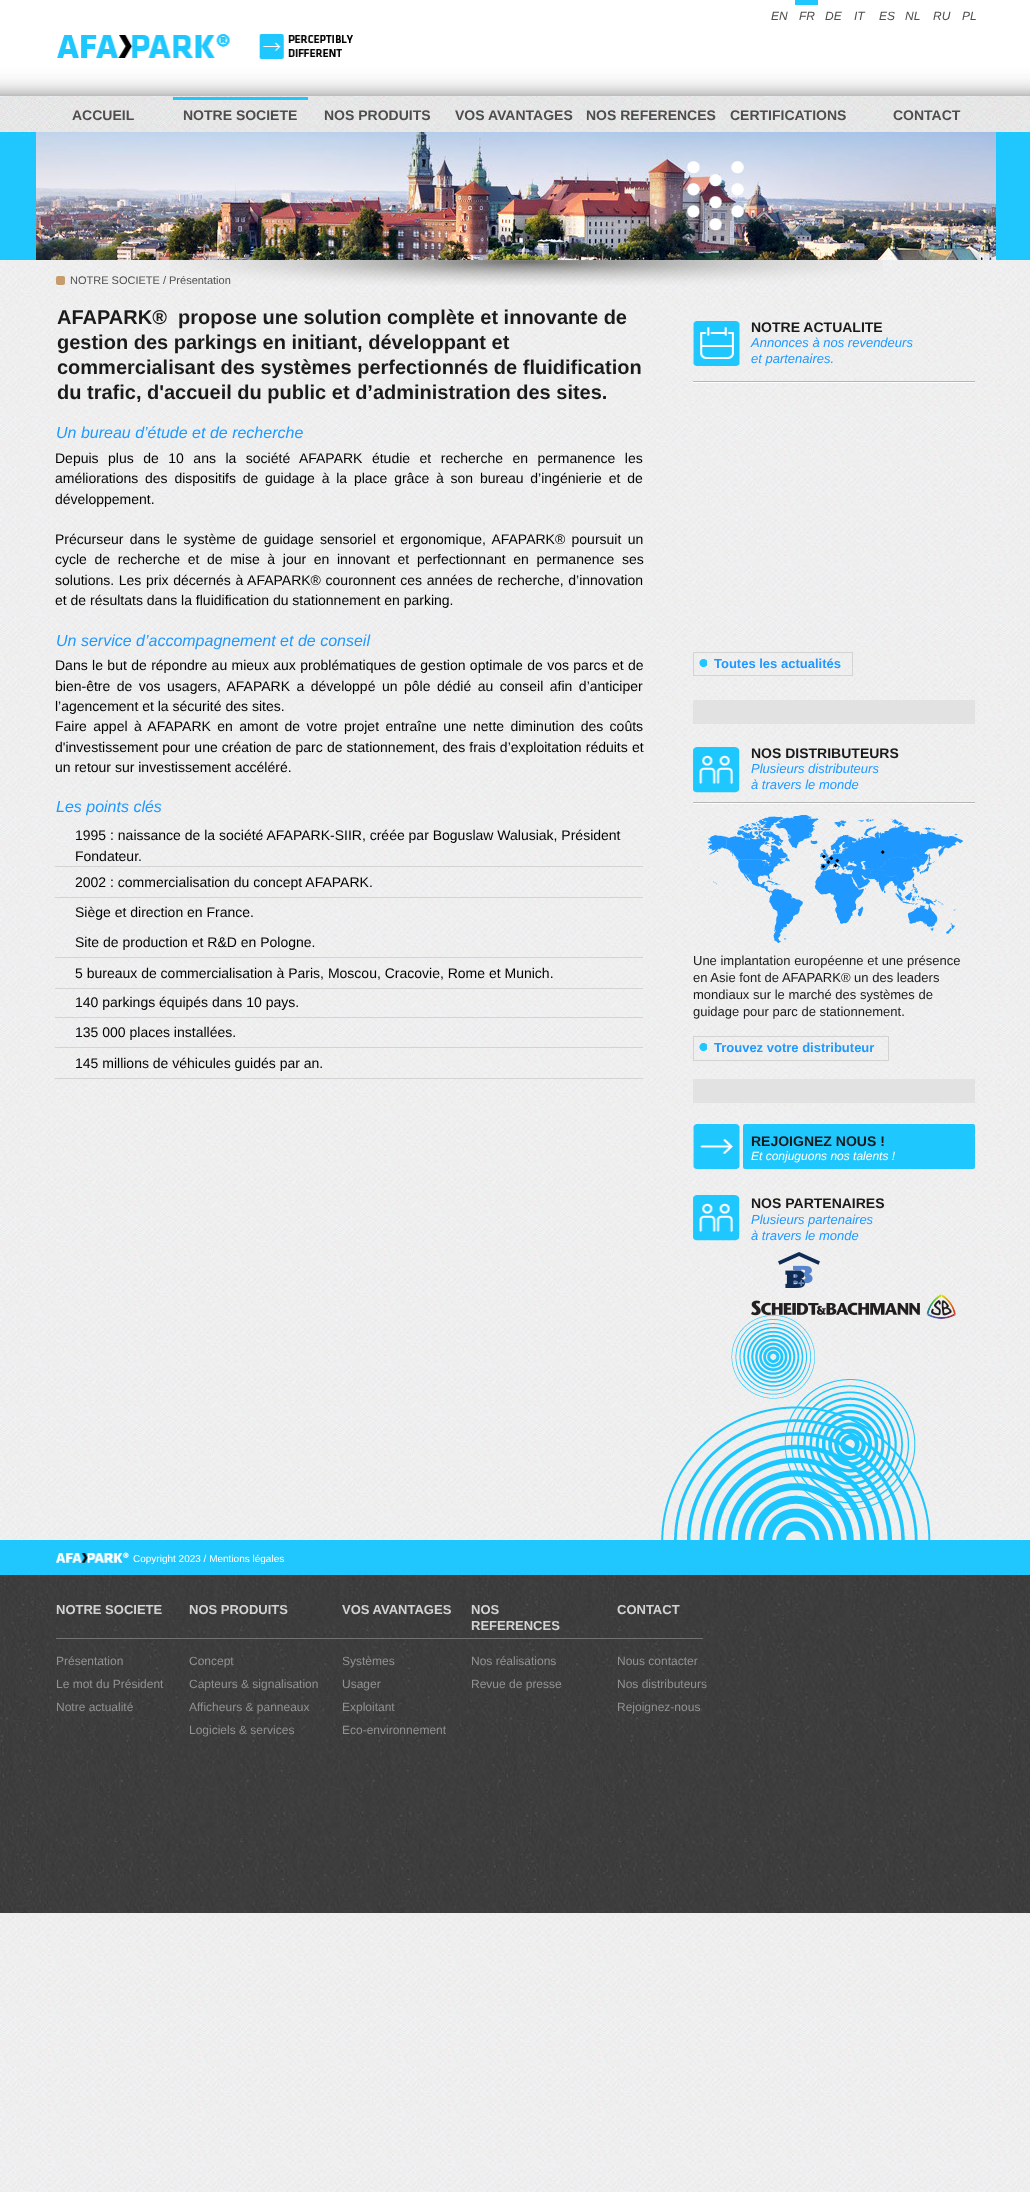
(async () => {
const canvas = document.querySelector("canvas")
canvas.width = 1030
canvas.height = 2192
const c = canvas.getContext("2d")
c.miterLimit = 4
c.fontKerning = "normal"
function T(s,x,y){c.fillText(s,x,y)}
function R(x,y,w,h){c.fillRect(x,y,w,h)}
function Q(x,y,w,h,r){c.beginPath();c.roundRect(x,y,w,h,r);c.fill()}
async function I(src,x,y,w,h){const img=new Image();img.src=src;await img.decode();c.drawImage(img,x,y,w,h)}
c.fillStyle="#fff"
R(0,0,1030,2192)
await I("1.png",0,260,1030,1932)
await I("2.png",36,260,959,1280)
await I("3.png",0,0,1030,260)
c.fillStyle="#1fc7ff"
R(795,0,23,5)
c.font="italic 12px Liberation Sans"
c.fillStyle="#4d4d4d"
T("EN",771,20)
T("FR",799,20)
T("DE",825,20)
T("IT",854,20)
T("ES",879,20)
T("NL",905,20)
T("RU",933,20)
T("PL",962,20)
await I("4.png",57,34,296,25)
c.font="bold 14px Liberation Sans"
T("ACCUEIL",72,120)
c.fillStyle="#1fc7ff"
R(173,97,135,3)
c.fillStyle="#4d4d4d"
T("NOTRE SOCIETE",183,120)
T("NOS PRODUITS",324,120)
T("VOS AVANTAGES",455,120)
T("NOS REFERENCES",586,120)
T("CERTIFICATIONS",730,120)
T("CONTACT",893,120)
await I("5.png",36,132,960,128)
await I("6.png",687,161,57,70)
await I("7.png",170,260,713,25)
c.fillStyle="#c69c6d"
Q(56,276,9,9,2)
c.font="11px Liberation Sans"
c.fillStyle="#4d4d4d"
T("NOTRE SOCIETE / Présentation",70,284)
c.font="bold 20px Liberation Sans"
c.fillStyle="#1a1a1a"
T("AFAPARK®  propose une solution complète et innovante de",57,324)
T("gestion des parkings en initiant, développant et",57,349)
T("commercialisant des systèmes perfectionnés de fluidification",57,374)
T("du trafic, d'accueil du public et d’administration des sites.",57,399)
c.font="italic 16px Liberation Sans"
c.fillStyle="#1f99ff"
T("Un bureau d’étude et de recherche",56,438)
c.wordSpacing="5.6px"
c.font="14px Liberation Sans"
c.fillStyle="#000"
T("Depuis plus de 10 ans la société AFAPARK étudie et recherche en permanence les",55,463)
c.wordSpacing="2.9px"
T("améliorations des dispositifs de guidage à la place grâce à son bureau d’ingénierie et de",55,483)
c.wordSpacing="0px"
T("développement.",55,504)
c.wordSpacing="2.4px"
T("Précurseur dans le système de guidage sensoriel et ergonomique, AFAPARK® poursuit un",55,544)
c.wordSpacing="3.75px"
T("cycle de recherche et de mise à jour en innovant et perfectionnant en permanence ses",55,564)
c.wordSpacing="0.75px"
T("solutions. Les prix décernés à AFAPARK® couronnent ces années de recherche, d’innovation",55,585)
c.wordSpacing="0px"
T("et de résultats dans la fluidification du stationnement en parking.",55,605)
c.font="italic 16px Liberation Sans"
c.fillStyle="#1f99ff"
T("Un service d’accompagnement et de conseil",56,646)
await I("8.png",693,321,47,45)
c.font="bold 14px Liberation Sans"
c.fillStyle="#1a1a1a"
T("NOTRE ACTUALITE",751,332)
c.font="italic 13px Liberation Sans"
c.fillStyle="#1f99ff"
T("Annonces à nos revendeurs",751,347)
T("et partenaires.",751,363)
await I("9.png",693,381,282,2)
c.wordSpacing="0.5px"
c.font="14px Liberation Sans"
c.fillStyle="#000"
T("Dans le but de répondre au mieux aux problématiques de gestion optimale de vos parcs et de",55,670)
c.wordSpacing="2.6px"
T("bien-être de vos usagers, AFAPARK a développé un pôle dédié au conseil afin d’anticiper",55,691)
c.wordSpacing="0px"
T("l’agencement et la sécurité des sites.",55,711)
c.wordSpacing="2.5px"
T("Faire appel à AFAPARK en amont de votre projet entraîne une nette diminution des coûts",55,731)
c.wordSpacing="0.25px"
T("d'investissement pour une création de parc de stationnement, des frais d’exploitation réduits et",55,752)
c.wordSpacing="0px"
T("un retour sur investissement accéléré.",55,772)
c.strokeStyle="#d3d3d3"
c.strokeRect(693.5,652.5,159,23)
await I("10.png",699,659,8,8)
c.font="bold 13px Liberation Sans"
c.fillStyle="#1f99ff"
T("Toutes les actualités",714,668)
c.fillStyle="#e2e2e2"
R(693,700,282,24)
await I("11.png",693,747,47,46)
c.font="bold 14px Liberation Sans"
c.fillStyle="#1a1a1a"
T("NOS DISTRIBUTEURS",751,758)
c.font="italic 13px Liberation Sans"
c.fillStyle="#1f99ff"
T("Plusieurs distributeurs",751,773)
T("à travers le monde",751,789)
c.font="italic 16px Liberation Sans"
T("Les points clés",56,812)
c.fillStyle="#d3d3d3"
R(55,866,588,1)
c.font="14px Liberation Sans"
c.fillStyle="#000"
T("1995 : naissance de la société AFAPARK-SIIR, créée par Boguslaw Walusiak, Président",75,840)
T("Fondateur.",75,861)
c.fillStyle="#d3d3d3"
R(55,897,588,1)
c.fillStyle="#000"
T("2002 : commercialisation du concept AFAPARK.",75,887)
T("Siège et direction en France.",75,917)
c.fillStyle="#d3d3d3"
R(55,957,588,1)
c.fillStyle="#000"
T("Site de production et R&D en Pologne.",75,947)
c.fillStyle="#d3d3d3"
R(55,988,588,1)
c.fillStyle="#000"
T("5 bureaux de commercialisation à Paris, Moscou, Cracovie, Rome et Munich.",75,978)
c.fillStyle="#d3d3d3"
R(55,1017,588,1)
c.fillStyle="#000"
T("140 parkings équipés dans 10 pays.",75,1007)
c.fillStyle="#d3d3d3"
R(55,1047,588,1)
c.fillStyle="#000"
T("135 000 places installées.",75,1037)
c.fillStyle="#d3d3d3"
R(55,1078,588,1)
c.fillStyle="#000"
T("145 millions de véhicules guidés par an.",75,1068)
await I("9.png",693,802,282,2)
await I("12.png",707,815,257,128)
c.font="13px Liberation Sans"
c.fillStyle="#1a1a1a"
T("Une implantation européenne et une présence",693,965)
T("en Asie font de AFAPARK® un des leaders",693,982)
T("mondiaux sur le marché des systèmes de",693,999)
T("guidage pour parc de stationnement.",693,1016)
c.strokeRect(693.5,1036.5,195,24)
await I("13.png",699,1043,8,8)
c.font="bold 13px Liberation Sans"
c.fillStyle="#1f99ff"
T("Trouvez votre distributeur",714,1052)
c.fillStyle="#e2e2e2"
R(693,1079,282,24)
await I("14.png",693,1124,47,45)
c.fillStyle="#1fc7ff"
Q(743,1124,232,45,2)
c.font="bold 14px Liberation Sans"
c.fillStyle="#1a1a1a"
T("REJOIGNEZ NOUS !",751,1146)
c.font="italic 12px Liberation Sans"
c.fillStyle="#fff"
T("Et conjuguons nos talents !",751,1160)
await I("15.png",693,1195,47,46)
c.font="bold 14px Liberation Sans"
c.fillStyle="#1a1a1a"
T("NOS PARTENAIRES",751,1208)
c.font="italic 13px Liberation Sans"
c.fillStyle="#1f99ff"
T("Plusieurs partenaires",751,1224)
T("à travers le monde",751,1240)
await I("16.png",778,1252,42,36)
await I("18.png",661,1315,270,225)
await I("17.png",751,1294,205,25)
await I("19.png",0,1540,1030,373)
await I("20.png",56,1552,73,11)
c.font="10px Liberation Sans"
c.fillStyle="#fff"
T("Copyright 2023 / Mentions légales",133,1562)
c.font="bold 13px Liberation Sans"
c.fillStyle="#d3d3d3"
T("NOTRE SOCIETE",56,1614)
T("NOS PRODUITS",189,1614)
T("VOS AVANTAGES",342,1614)
T("NOS",471,1614)
T("REFERENCES",471,1630)
T("CONTACT",617,1614)
c.fillStyle="#737373"
R(56,1638,647,1)
c.font="12px Liberation Sans"
c.fillStyle="#929292"
T("Présentation",56,1665)
T("Le mot du Président",56,1688)
T("Notre actualité",56,1711)
T("Concept",189,1665)
T("Capteurs & signalisation",189,1688)
T("Afficheurs & panneaux",189,1711)
T("Logiciels & services",189,1734)
T("Systèmes",342,1665)
T("Usager",342,1688)
T("Exploitant",342,1711)
T("Eco-environnement",342,1734)
T("Nos réalisations",471,1665)
T("Revue de presse",471,1688)
T("Nous contacter",617,1665)
T("Nos distributeurs",617,1688)
T("Rejoignez-nous",617,1711)
})()
